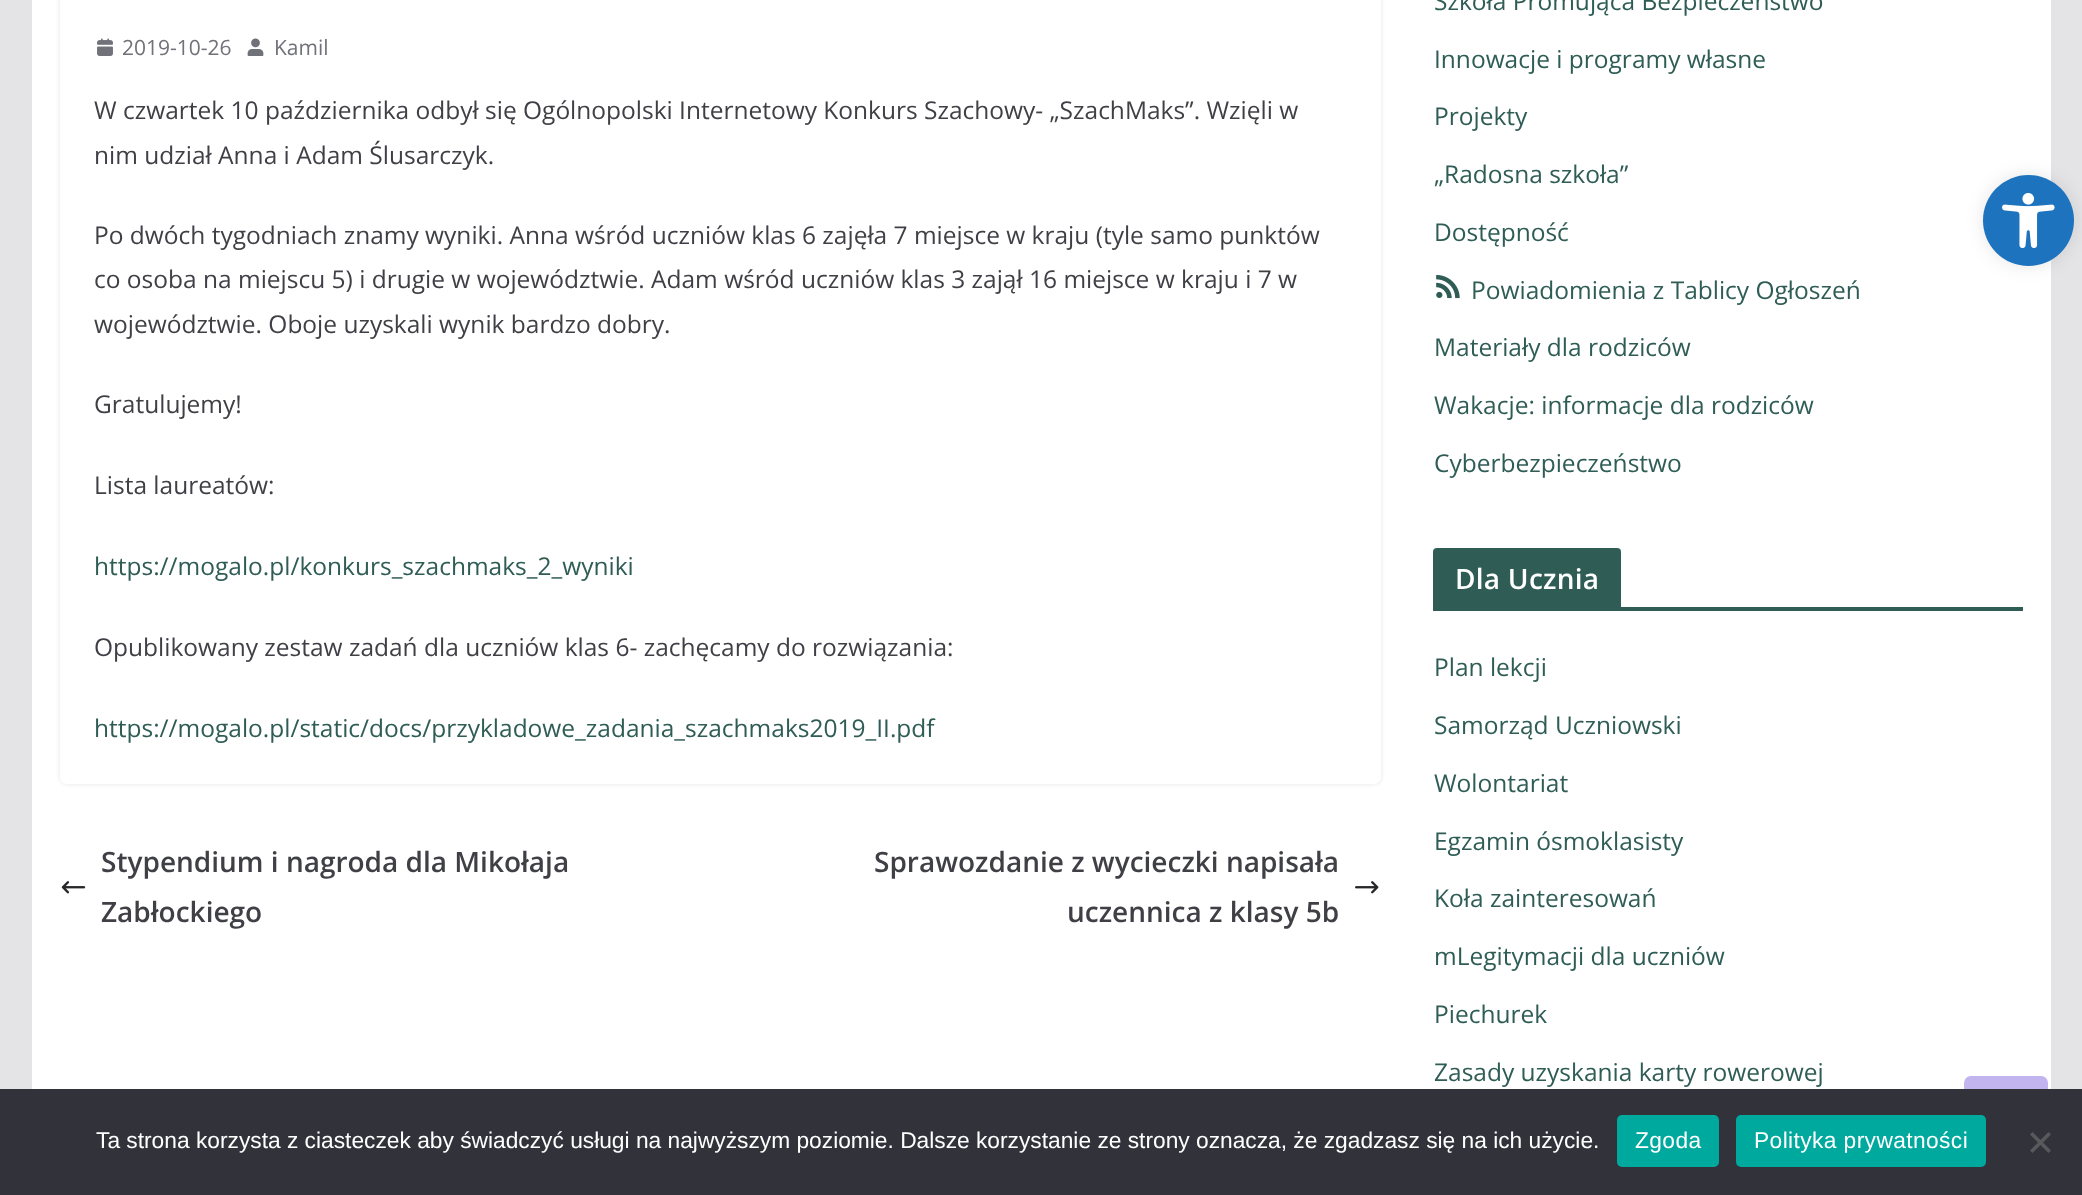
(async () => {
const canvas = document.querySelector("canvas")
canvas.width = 2082
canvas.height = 1195
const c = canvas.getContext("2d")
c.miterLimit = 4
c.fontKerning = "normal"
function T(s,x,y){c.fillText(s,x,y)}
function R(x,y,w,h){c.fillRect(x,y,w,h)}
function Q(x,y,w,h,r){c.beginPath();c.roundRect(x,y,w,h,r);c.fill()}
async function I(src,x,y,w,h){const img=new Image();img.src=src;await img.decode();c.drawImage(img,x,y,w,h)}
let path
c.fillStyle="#e4e4e7"
R(0,0,2082,1195)
c.fillStyle="#fff"
R(32,0,2019,1089)
c.save()
path = new Path2D("M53 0h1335v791h-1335zm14-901h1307c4 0 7 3 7 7v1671c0 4-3 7-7 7h-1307c-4 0-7-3-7-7v-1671c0-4 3-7 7-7z")
c.clip(path,"evenodd")
c.fillStyle="#e4e4e7"
c.filter="blur(2px)"
c.beginPath()
c.roundRect(60,-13,1321,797,7)
c.fill()
c.filter="none"
c.restore()
await I("1.png",97,38,16,18)
c.font="21px Open Sans"
c.fillStyle="#71717a"
T("2019-10-26",122,55)
await I("2.png",247,38,17,18)
T("Kamil",274,55)
c.font="24.5px Open Sans"
c.fillStyle="#3f3f46"
T("W czwartek 10 października odbył się Ogólnopolski Internetowy Konkurs Szachowy- „SzachMaks”. Wzięli w",94,119)
T("nim udział Anna i Adam Ślusarczyk.",94,164)
T("Po dwóch tygodniach znamy wyniki. Anna wśród uczniów klas 6 zajęła 7 miejsce w kraju (tyle samo punktów",94,244)
T("co osoba na miejscu 5) i drugie w województwie. Adam wśród uczniów klas 3 zajął 16 miejsce w kraju i 7 w",94,288)
T("województwie. Oboje uzyskali wynik bardzo dobry.",94,333)
T("Gratulujemy!",94,413)
T("Lista laureatów:",94,494)
c.fillStyle="#2f5d56"
T("https://mogalo.pl/konkurs_szachmaks_2_wyniki",94,575)
c.fillStyle="#3f3f46"
T("Opublikowany zestaw zadań dla uczniów klas 6- zachęcamy do rozwiązania:",94,656)
c.fillStyle="#2f5d56"
T("https://mogalo.pl/static/docs/przykladowe_zadania_szachmaks2019_II.pdf",94,737)
c.font="600 28px Open Sans"
c.fillStyle="#3f3f46"
T("Stypendium i nagroda dla Mikołaja",101,872)
await I("3.png",61,881,25,13)
T("Zabłockiego",101,922)
T("Sprawozdanie z wycieczki napisała",874,872)
await I("4.png",1355,881,24,13)
T("uczennica z klasy 5b",1067,922)
c.font="24.5px Open Sans"
c.fillStyle="#2f5d56"
T("Szkoła Promująca Bezpieczeństwo",1434,10)
T("Innowacje i programy własne",1434,68)
T("Projekty",1434,125)
T("„Radosna szkoła”",1434,183)
T("Dostępność",1434,241)
await I("5.png",1436,274,24,25)
T("Powiadomienia z Tablicy Ogłoszeń",1471,299)
T("Materiały dla rodziców",1434,356)
T("Wakacje: informacje dla rodziców",1434,414)
T("Cyberbezpieczeństwo",1434,472)
R(1433,607,590,4)
c.beginPath()
c.roundRect(1433,548,188,59,[4,4,0,0])
c.fill()
c.letterSpacing="0.25px"
c.font="600 28px Open Sans"
c.fillStyle="#fff"
T("Dla Ucznia",1455,589)
c.letterSpacing="0px"
c.font="24.5px Open Sans"
c.fillStyle="#2f5d56"
T("Plan lekcji",1434,676)
T("Samorząd Uczniowski",1434,734)
T("Wolontariat",1434,792)
T("Egzamin ósmoklasisty",1434,850)
T("Koła zainteresowań",1434,907)
T("mLegitymacji dla uczniów",1434,965)
T("Piechurek",1434,1023)
T("Zasady uzyskania karty rowerowej",1434,1081)
c.fillStyle="#c1b4ef"
Q(1964,1076,84,84,7)
c.fillStyle="#0000001a"
c.filter="blur(9px)"
c.beginPath()
c.roundRect(1983,175,91,91,45.5)
c.fill()
c.filter="none"
c.fillStyle="#1e73be"
c.beginPath()
c.arc(2028.5,220.5,45.5,0,7)
c.fill()
await I("6.png",2002,193,53,56)
c.fillStyle="#32323a"
R(0,1089,2082,106)
c.font="22.75px Liberation Sans"
c.fillStyle="#fff"
T("Ta strona korzysta z ciasteczek aby świadczyć usługi na najwyższym poziomie. Dalsze korzystanie ze strony oznacza, że zgadzasz się na ich użycie.",96,1148)
c.fillStyle="#00a99d"
Q(1617,1115,102,52,5)
c.letterSpacing="0.4px"
c.fillStyle="#fff"
T("Zgoda",1635,1148)
c.fillStyle="#00a99d"
Q(1736,1115,250,52,5)
c.fillStyle="#fff"
T("Polityka prywatności",1754,1148)
c.fillStyle="#59595d"
path = new Path2D("M2048.5 1132l2.5 2.5l-18.5 18.5l-2.5-2.5z")
c.fill(path)
path = new Path2D("M2030 1134.5l2.5-2.5l18.5 18.5l-2.5 2.5z")
c.fill(path)
})()
